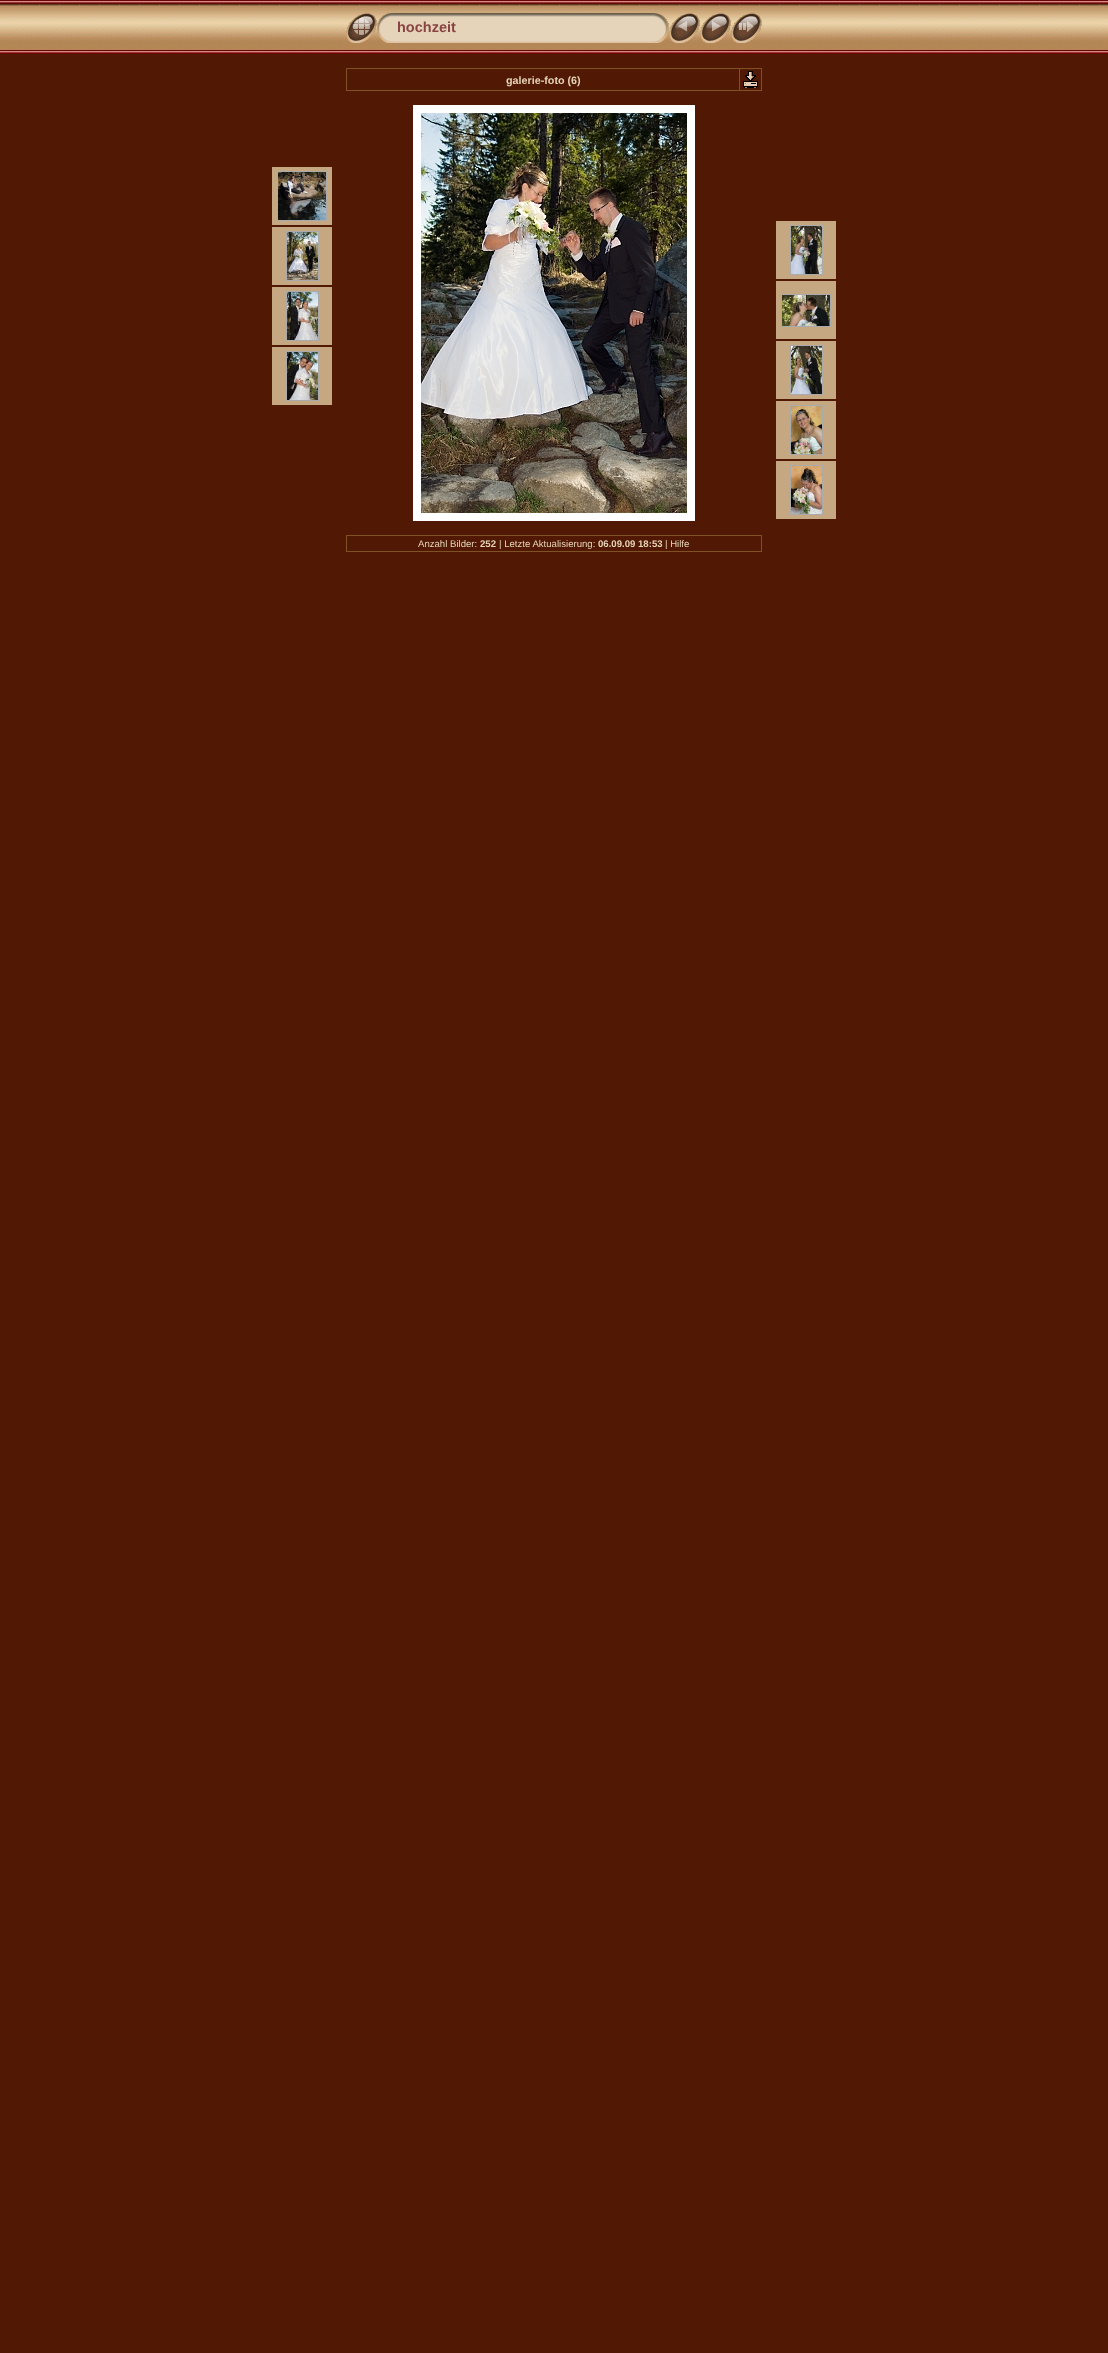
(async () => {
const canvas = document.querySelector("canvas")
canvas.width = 1108
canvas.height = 2353
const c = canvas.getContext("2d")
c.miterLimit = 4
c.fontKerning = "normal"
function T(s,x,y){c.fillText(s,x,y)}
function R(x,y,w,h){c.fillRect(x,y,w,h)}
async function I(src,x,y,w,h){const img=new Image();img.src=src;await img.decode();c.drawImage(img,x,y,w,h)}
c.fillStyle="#511903"
R(0,0,1108,2353)
await I("1.png",0,0,1108,54)
await I("2.png",346,13,31,30)
await I("3.png",377,13,20,30)
await I("4.png",397,13,252,30)
c.font="bold 14.5px Liberation Sans"
c.fillStyle="#844"
T("hochzeit",397,32)
await I("5.png",649,13,20,30)
await I("6.png",669,13,31,30)
await I("7.png",700,13,31,30)
await I("8.png",731,13,31,30)
c.fillStyle="#7e5223"
R(346,68,416,1)
R(761,68,1,23)
R(346,90,416,1)
R(346,68,1,23)
c.font="bold 10.75px Liberation Sans"
c.fillStyle="#e6d4ba"
T("galerie-foto (6)",506,84)
c.fillStyle="#7e5223"
R(739,68,1,23)
await I("9.png",743,71,15,17)
c.fillStyle="#c5a881"
R(272,167,60,58)
c.strokeStyle="#aaa"
c.strokeRect(277.5,171.5,49,49)
await I("10.png",278,172,48,48)
R(272,227,60,58)
c.strokeRect(286.5,231.5,32,49)
await I("11.png",287,232,31,48)
R(272,287,60,58)
c.strokeRect(286.5,291.5,32,49)
await I("12.png",287,292,31,48)
R(272,347,60,58)
c.strokeRect(286.5,351.5,32,49)
await I("13.png",287,352,31,48)
c.strokeStyle="#fff"
c.lineWidth=8
c.strokeRect(417,109,274,408)
await I("14.png",421,113,266,400)
R(776,221,60,58)
c.strokeStyle="#aaa"
c.lineWidth=1
c.strokeRect(790.5,225.5,32,49)
await I("15.png",791,226,31,48)
R(776,281,60,58)
c.strokeRect(781.5,294.5,49,32)
await I("16.png",782,295,48,31)
R(776,341,60,58)
c.strokeRect(790.5,345.5,32,49)
await I("17.png",791,346,31,48)
R(776,401,60,58)
c.strokeRect(790.5,405.5,32,49)
await I("18.png",791,406,31,48)
R(776,461,60,58)
c.strokeRect(790.5,465.5,32,49)
await I("19.png",791,466,31,48)
c.fillStyle="#7e5223"
R(346,535,416,1)
R(761,535,1,17)
R(346,551,416,1)
R(346,535,1,17)
c.font="9.6px Liberation Sans"
c.fillStyle="#e6d4ba"
T("Anzahl Bilder:",418,547)
c.font="bold 9.6px Liberation Sans"
T("252",480,547)
c.font="9.6px Liberation Sans"
T("| Letzte Aktualisierung:",499,547)
c.font="bold 9.6px Liberation Sans"
T("06.09.09 18:53",598,547)
c.font="9.6px Liberation Sans"
T("| Hilfe",665,547)
})()
